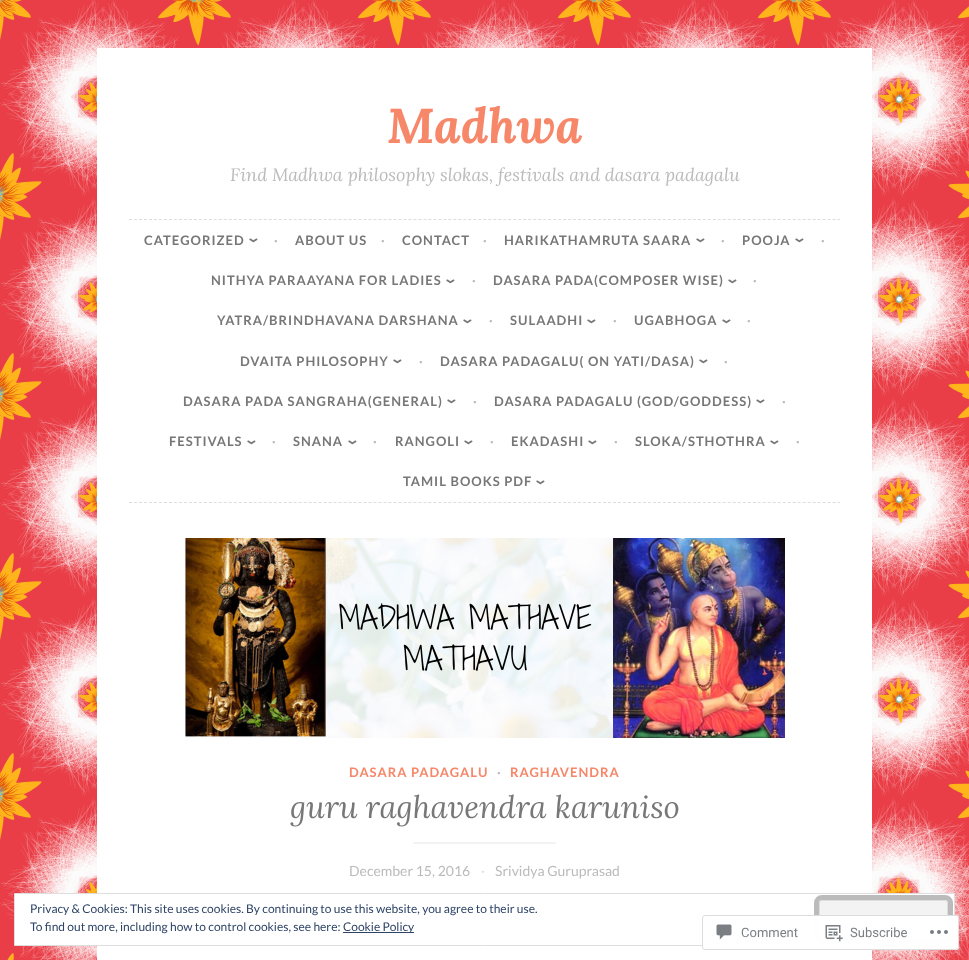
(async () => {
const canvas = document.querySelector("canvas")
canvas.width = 969
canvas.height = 960
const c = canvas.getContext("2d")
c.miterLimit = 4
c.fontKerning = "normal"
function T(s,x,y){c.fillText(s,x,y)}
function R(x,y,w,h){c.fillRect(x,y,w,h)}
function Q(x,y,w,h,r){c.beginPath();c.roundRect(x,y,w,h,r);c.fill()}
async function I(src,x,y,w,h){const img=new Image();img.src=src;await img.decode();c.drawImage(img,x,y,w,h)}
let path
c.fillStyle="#fff"
R(0,0,969,960)
await I("1.png",0,0,969,960)
R(97,48,775,912)
c.font="italic bold 49px Lora"
c.fillStyle="#f78769"
T("Madhwa",387,143)
c.font="italic 18px Lora"
c.fillStyle="#bbb"
T("Find Madhwa philosophy slokas, festivals and dasara padagalu",230,181)
path = new Path2D("M129 219.5h711")
c.strokeStyle="#ddd"
c.setLineDash([3,1.99])
c.stroke(path)
path = new Path2D("M129 502.5h711")
c.stroke(path)
c.letterSpacing="1px"
c.font="bold 13px Lato"
c.fillStyle="#777"
T("CATEGORIZED",144,245)
c.font="bold 20px Lato"
c.save()
c.translate(248,237)
c.rotate(90 * Math.PI / 180)
c.fillText("›",0,0)
c.restore()
c.font="bold 13px Lato"
c.fillStyle="#bbb"
T("·",274,245)
c.fillStyle="#777"
T("ABOUT US",295,245)
c.fillStyle="#bbb"
T("·",381,245)
c.fillStyle="#777"
T("CONTACT",402,245)
c.fillStyle="#bbb"
T("·",483,245)
c.fillStyle="#777"
T("HARIKATHAMRUTA SAARA",504,245)
c.font="bold 20px Lato"
c.save()
c.translate(695,237)
c.rotate(90 * Math.PI / 180)
c.fillText("›",0,0)
c.restore()
c.font="bold 13px Lato"
c.fillStyle="#bbb"
T("·",721,245)
c.fillStyle="#777"
T("POOJA",742,245)
c.font="bold 20px Lato"
c.save()
c.translate(794,237)
c.rotate(90 * Math.PI / 180)
c.fillText("›",0,0)
c.restore()
c.font="bold 13px Lato"
c.fillStyle="#bbb"
T("·",821,245)
c.fillStyle="#777"
T("NITHYA PARAAYANA FOR LADIES",211,285)
c.font="bold 20px Lato"
c.save()
c.translate(445,278)
c.rotate(90 * Math.PI / 180)
c.fillText("›",0,0)
c.restore()
c.font="bold 13px Lato"
c.fillStyle="#bbb"
T("·",472,285)
c.fillStyle="#777"
T("DASARA PADA(COMPOSER WISE)",493,285)
c.font="bold 20px Lato"
c.save()
c.translate(727,278)
c.rotate(90 * Math.PI / 180)
c.fillText("›",0,0)
c.restore()
c.font="bold 13px Lato"
c.fillStyle="#bbb"
T("·",753,285)
c.fillStyle="#777"
T("YATRA/BRINDHAVANA DARSHANA",217,325)
c.font="bold 20px Lato"
c.save()
c.translate(462,318)
c.rotate(90 * Math.PI / 180)
c.fillText("›",0,0)
c.restore()
c.font="bold 13px Lato"
c.fillStyle="#bbb"
T("·",489,325)
c.fillStyle="#777"
T("SULAADHI",510,325)
c.font="bold 20px Lato"
c.save()
c.translate(586,318)
c.rotate(90 * Math.PI / 180)
c.fillText("›",0,0)
c.restore()
c.font="bold 13px Lato"
c.fillStyle="#bbb"
T("·",613,325)
c.fillStyle="#777"
T("UGABHOGA",634,325)
c.font="bold 20px Lato"
c.save()
c.translate(721,318)
c.rotate(90 * Math.PI / 180)
c.fillText("›",0,0)
c.restore()
c.font="bold 13px Lato"
c.fillStyle="#bbb"
T("·",747,325)
c.fillStyle="#777"
T("DVAITA PHILOSOPHY",240,366)
c.font="bold 20px Lato"
c.save()
c.translate(392,358)
c.rotate(90 * Math.PI / 180)
c.fillText("›",0,0)
c.restore()
c.font="bold 13px Lato"
c.fillStyle="#bbb"
T("·",419,366)
c.fillStyle="#777"
T("DASARA PADAGALU( ON YATI/DASA)",440,366)
c.font="bold 20px Lato"
c.save()
c.translate(698,358)
c.rotate(90 * Math.PI / 180)
c.fillText("›",0,0)
c.restore()
c.font="bold 13px Lato"
c.fillStyle="#bbb"
T("·",724,366)
c.fillStyle="#777"
T("DASARA PADA SANGRAHA(GENERAL)",183,406)
c.font="bold 20px Lato"
c.save()
c.translate(446,398)
c.rotate(90 * Math.PI / 180)
c.fillText("›",0,0)
c.restore()
c.font="bold 13px Lato"
c.fillStyle="#bbb"
T("·",473,406)
c.fillStyle="#777"
T("DASARA PADAGALU (GOD/GODDESS)",494,406)
c.font="bold 20px Lato"
c.save()
c.translate(755,398)
c.rotate(90 * Math.PI / 180)
c.fillText("›",0,0)
c.restore()
c.font="bold 13px Lato"
c.fillStyle="#bbb"
T("·",782,406)
c.fillStyle="#777"
T("FESTIVALS",169,446)
c.font="bold 20px Lato"
c.save()
c.translate(246,439)
c.rotate(90 * Math.PI / 180)
c.fillText("›",0,0)
c.restore()
c.font="bold 13px Lato"
c.fillStyle="#bbb"
T("·",272,446)
c.fillStyle="#777"
T("SNANA",293,446)
c.font="bold 20px Lato"
c.save()
c.translate(347,439)
c.rotate(90 * Math.PI / 180)
c.fillText("›",0,0)
c.restore()
c.font="bold 13px Lato"
c.fillStyle="#bbb"
T("·",373,446)
c.fillStyle="#777"
T("RANGOLI",395,446)
c.font="bold 20px Lato"
c.save()
c.translate(463,439)
c.rotate(90 * Math.PI / 180)
c.fillText("›",0,0)
c.restore()
c.font="bold 13px Lato"
c.fillStyle="#bbb"
T("·",490,446)
c.fillStyle="#777"
T("EKADASHI",511,446)
c.font="bold 20px Lato"
c.save()
c.translate(587,439)
c.rotate(90 * Math.PI / 180)
c.fillText("›",0,0)
c.restore()
c.font="bold 13px Lato"
c.fillStyle="#bbb"
T("·",614,446)
c.fillStyle="#777"
T("SLOKA/STHOTHRA",635,446)
c.font="bold 20px Lato"
c.save()
c.translate(769,439)
c.rotate(90 * Math.PI / 180)
c.fillText("›",0,0)
c.restore()
c.font="bold 13px Lato"
c.fillStyle="#bbb"
T("·",796,446)
c.fillStyle="#777"
T("TAMIL BOOKS PDF",403,486)
c.font="bold 20px Lato"
c.save()
c.translate(535,479)
c.rotate(90 * Math.PI / 180)
c.fillText("›",0,0)
c.restore()
await I("2.png",185,538,600,200)
c.font="bold 13px Lato"
c.fillStyle="#f78769"
T("DASARA PADAGALU",349,777)
c.fillStyle="#bbb"
T("·",497,777)
c.fillStyle="#f78769"
T("RAGHAVENDRA",510,777)
c.letterSpacing="0px"
c.font="italic 31.25px Lora"
c.fillStyle="#777"
T("guru raghavendra karuniso",290,818)
c.fillStyle="#f3f3f3"
R(413,842,143,2)
c.font="14px Lato"
c.fillStyle="#bbb"
T("December 15, 2016",349,876)
c.fillStyle="#ddd"
T("·",481,876)
c.fillStyle="#bbb"
T("Srividya Guruprasad",495,876)
c.fillStyle="#fff"
c.beginPath()
c.rect(14.5,893.5,940,52)
c.fill()
c.strokeStyle="#dedede"
c.setLineDash([])
c.stroke()
c.font="12px Lato"
c.fillStyle="#2e4467"
T("Privacy & Cookies: This site uses cookies. By continuing to use this website, you agree to their use.",30,913)
c.fillStyle="#f3f3f3"
c.beginPath()
c.roundRect(819.5,900.5,128,38,2.5)
c.fill()
c.stroke()
c.beginPath()
c.roundRect(816.5,897.5,134,44,5.5)
c.strokeStyle="#bbb"
c.lineWidth=5
c.stroke()
c.fillStyle="#2e4467"
T("To find out more, including how to control cookies, see here:",30,931)
R(343,932,71,1)
T("Cookie Policy",343,931)
c.fillStyle="#fffffffa"
Q(702,915,257,35,3)
c.beginPath()
c.roundRect(702.5,915.5,256,34,2.5)
c.strokeStyle="#dcdcdefa"
c.lineWidth=1
c.stroke()
await I("3.png",716,924,16,16)
c.font="13px Roboto"
c.fillStyle="#7b7f85"
T("Comment",741,937)
await I("4.png",825,925,18,17)
T("Subscribe",850,937)
await I("5.png",930,930,18,4)
})()
